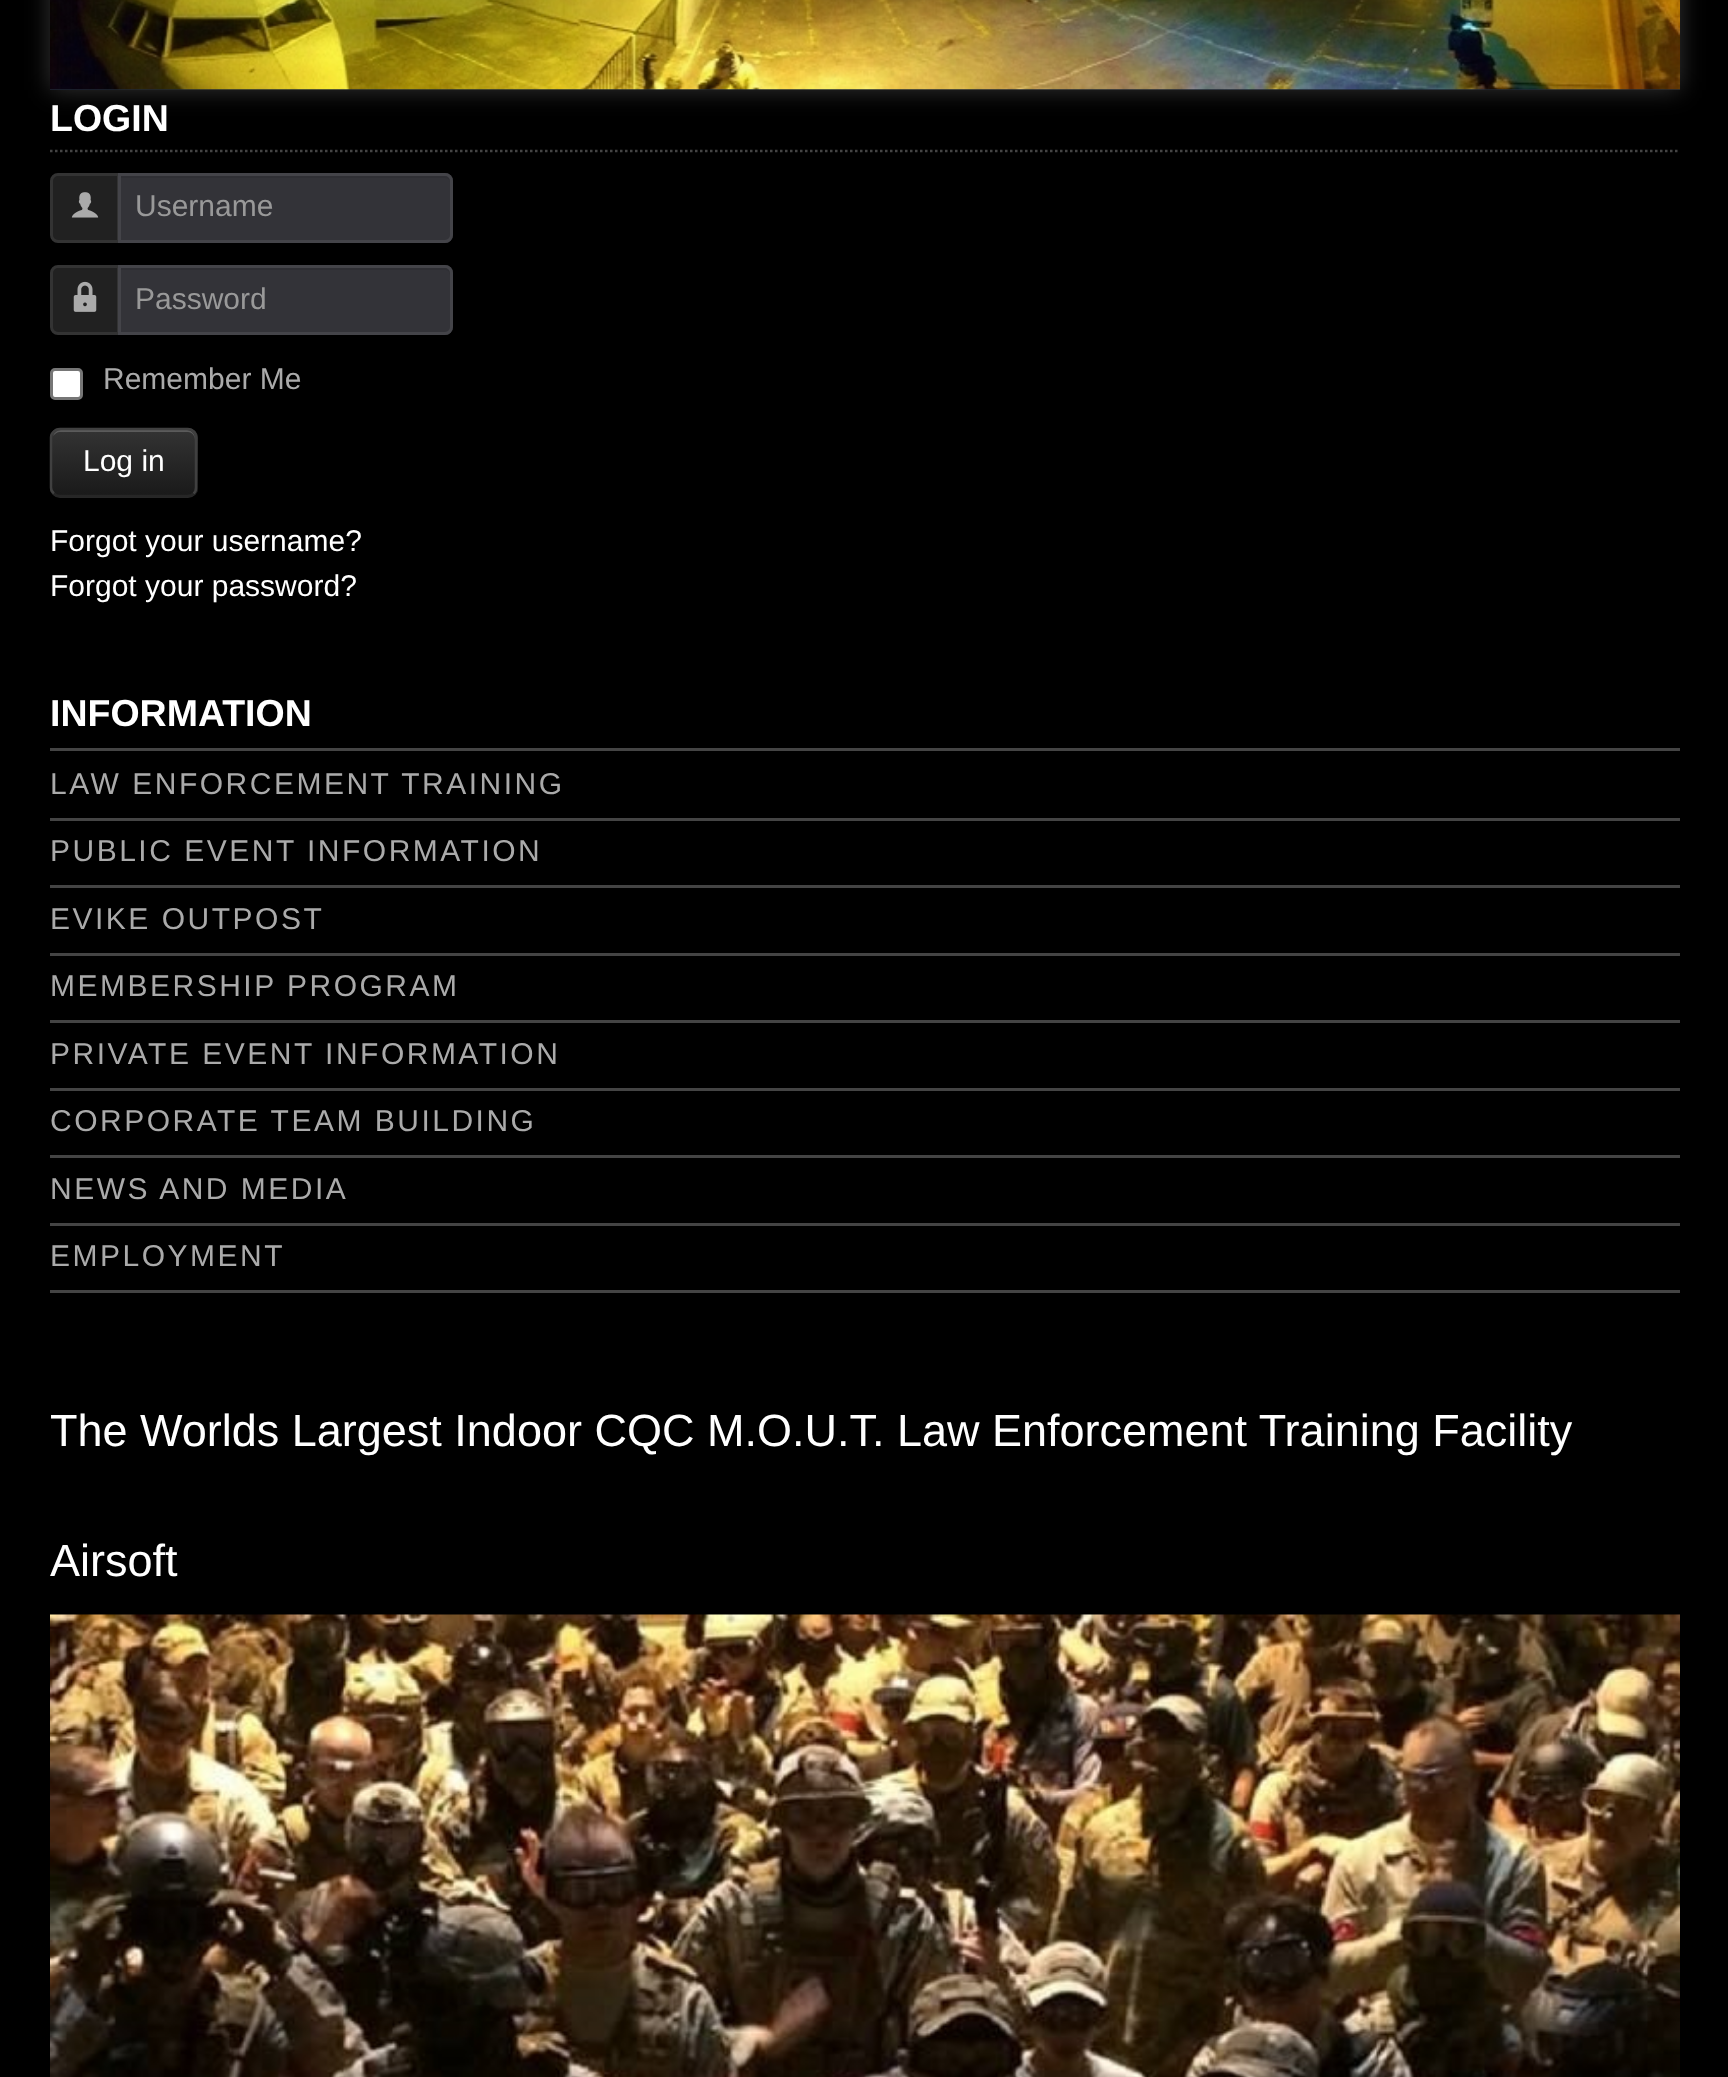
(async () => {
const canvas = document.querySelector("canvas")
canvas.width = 1728
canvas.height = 2077
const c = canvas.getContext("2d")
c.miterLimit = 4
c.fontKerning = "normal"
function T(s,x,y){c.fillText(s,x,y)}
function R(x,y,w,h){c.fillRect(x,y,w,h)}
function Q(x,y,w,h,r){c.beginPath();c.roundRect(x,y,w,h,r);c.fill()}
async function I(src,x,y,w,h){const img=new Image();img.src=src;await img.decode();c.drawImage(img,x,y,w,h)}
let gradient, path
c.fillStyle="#000"
R(0,0,1728,2077)
c.fillStyle="#333"
c.filter="blur(12.5px)"
c.beginPath()
c.rect(50,-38,1630,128)
c.fill()
c.filter="none"
c.fillStyle="#202834"
R(50,89,1630,1)
await I("1.png",50,0,1630,90)
path = new Path2D("M50 151h1630")
c.strokeStyle="#444"
c.lineWidth=2.5
c.setLineDash([2.5,2.5])
c.stroke(path)
c.font="bold 37.5px Liberation Sans"
c.fillStyle="#fff"
T("LOGIN",50,131)
c.fillStyle="#212121"
c.beginPath()
c.roundRect(51.5,174.5,67,67,[6.5,0,0,6.5])
c.fill()
c.strokeStyle="#333"
c.lineWidth=3
c.setLineDash([])
c.stroke()
await I("2.png",71,192,28,26)
c.fillStyle="#333338"
c.beginPath()
c.roundRect(118,173,335,70,[0,8,8,0])
c.fill()
c.fillStyle="#2f2f34"
path = new Path2D("M120 178h325c3 0 5 2 5 4v-2c0-3-2-5-5-5h-325z")
c.fill(path)
c.beginPath()
c.roundRect(119.5,174.5,332,67,[0,6.5,6.5,0])
c.strokeStyle="#444449"
c.stroke()
c.font="30px Liberation Sans"
c.fillStyle="#999"
T("Username",135,216)
c.fillStyle="#212121"
c.beginPath()
c.roundRect(51.5,266.5,67,67,[6.5,0,0,6.5])
c.fill()
c.strokeStyle="#333"
c.stroke()
await I("3.png",73,281,24,31)
c.fillStyle="#333338"
c.beginPath()
c.roundRect(118,265,335,70,[0,8,8,0])
c.fill()
c.fillStyle="#2f2f34"
path = new Path2D("M120 270h325c3 0 5 2 5 5v-2c0-3-2-5-5-5h-325z")
c.fill(path)
c.beginPath()
c.roundRect(119.5,266.5,332,67,[0,6.5,6.5,0])
c.strokeStyle="#444449"
c.stroke()
c.fillStyle="#999"
T("Password",135,309)
c.fillStyle="#fff"
c.beginPath()
c.roundRect(51.5,369.5,30,29,3.5)
c.fill()
c.strokeStyle="#767676"
c.stroke()
c.fillStyle="#aaa"
T("Remember Me",103,389)
c.fillStyle="#292929"
Q(50,428,148,70,10)
c.save()
c.beginPath()
c.roundRect(50,428,148,70,10)
c.clip()
gradient = c.createLinearGradient(124,430,124,495)
gradient.addColorStop(0,"#333")
gradient.addColorStop(1,"#1a1a1a")
c.fillStyle = gradient
R(50,430,148,65)
c.restore()
c.fillStyle="#5b5b5b"
path = new Path2D("M60 432h128c4 0 7 4 7 8v-2c0-4-4-8-8-8h-126c-4 0-7 3-8 6c2-2 4-4 7-4z")
c.fill(path)
path = new Path2D("M193.5 493.5c-1.5 2-3.5 2.5-6 2.5h-127.5c-2.5 0-4.5-.5-6-2.5")
c.strokeStyle="#262626"
c.lineWidth=2.5
c.stroke(path)
path = new Path2D("M54 493.5c-2-1.5-3-3.5-3-6v-50c0-2.5 1-4.5 3-6c1.5-2 3.5-2.5 6-2.5h127.5c2.5 0 4.5 .5 6 2.5c2 1.5 2.5 3.5 2.5 6v50c0 2.5-.5 4.5-2.5 6")
c.strokeStyle="#404040"
c.stroke(path)
c.fillStyle="#fff"
T("Log in",83,471)
T("Forgot your username?",50,551)
T("Forgot your password?",50,596)
c.fillStyle="#444"
R(50,748,1630,3)
c.font="bold 37.5px Liberation Sans"
c.fillStyle="#fff"
T("INFORMATION",50,726)
c.fillStyle="#444"
R(50,818,1630,3)
c.letterSpacing="2.5px"
c.font="30px Liberation Sans"
c.fillStyle="#aaa"
T("LAW ENFORCEMENT TRAINING",50,794)
c.fillStyle="#444"
R(50,885,1630,3)
c.fillStyle="#aaa"
T("PUBLIC EVENT INFORMATION",50,861)
c.fillStyle="#444"
R(50,953,1630,3)
c.fillStyle="#aaa"
T("EVIKE OUTPOST",50,929)
c.fillStyle="#444"
R(50,1020,1630,3)
c.fillStyle="#aaa"
T("MEMBERSHIP PROGRAM",50,996)
c.fillStyle="#444"
R(50,1088,1630,3)
c.fillStyle="#aaa"
T("PRIVATE EVENT INFORMATION",50,1064)
c.fillStyle="#444"
R(50,1155,1630,3)
c.fillStyle="#aaa"
T("CORPORATE TEAM BUILDING",50,1131)
c.fillStyle="#444"
R(50,1223,1630,3)
c.fillStyle="#aaa"
T("NEWS AND MEDIA",50,1199)
c.fillStyle="#444"
R(50,1290,1630,3)
c.fillStyle="#aaa"
T("EMPLOYMENT",50,1266)
c.letterSpacing="0px"
c.font="45px Liberation Sans"
c.fillStyle="#fff"
T("The Worlds Largest Indoor CQC M.O.U.T. Law Enforcement Training Facility",50,1446)
T("Airsoft",50,1576)
await I("4.png",50,1614,1630,463)
})()
